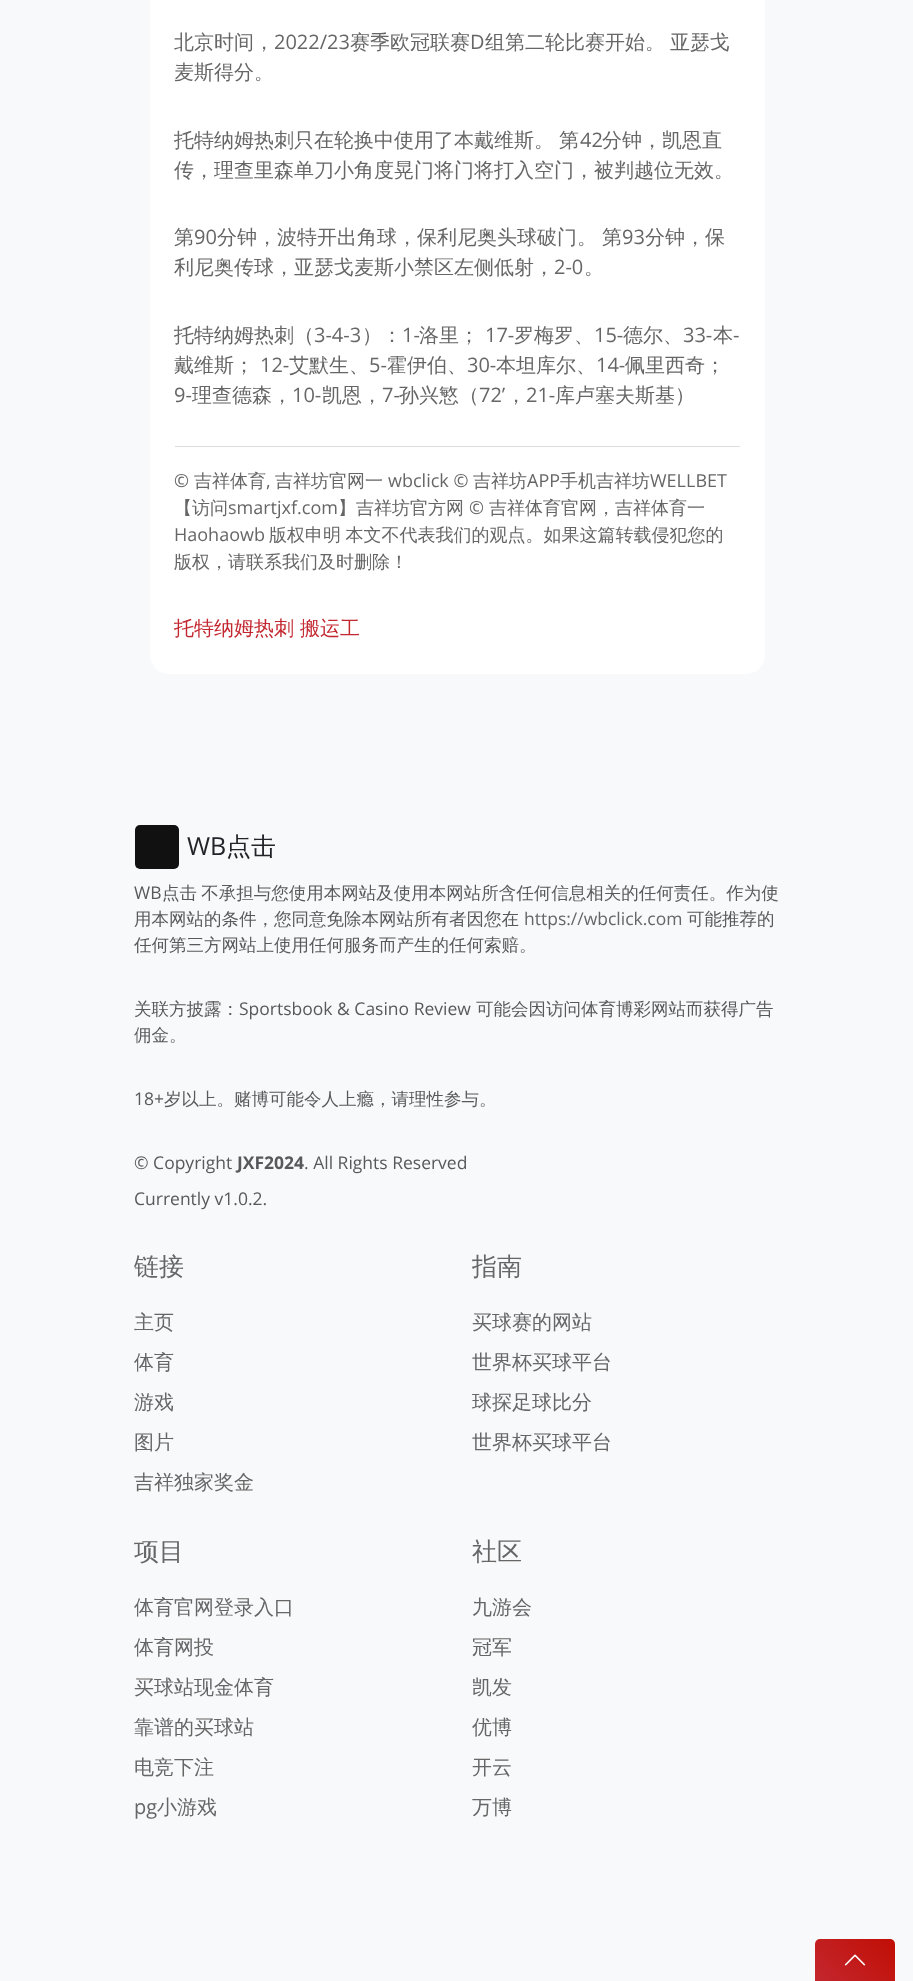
(async () => {
const canvas = document.querySelector("canvas")
canvas.width = 913
canvas.height = 1981
const c = canvas.getContext("2d")
c.miterLimit = 4
c.fontKerning = "normal"
function T(s,x,y){c.fillText(s,x,y)}
function R(x,y,w,h){c.fillRect(x,y,w,h)}
function Q(x,y,w,h,r){c.beginPath();c.roundRect(x,y,w,h,r);c.fill()}
async function I(src,x,y,w,h){const img=new Image();img.src=src;await img.decode();c.drawImage(img,x,y,w,h)}
let gradient
c.fillStyle="#f8f9fa"
R(0,0,913,1981)
c.fillStyle="#fff"
Q(150,-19,615,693,19)
c.font="500 20px WenQuanYi Zen Hei"
c.fillStyle="#666"
T("北京时间，",174,49)
c.font="20px Open Sans"
T("2022/23",274,49)
c.font="500 20px WenQuanYi Zen Hei"
T("赛季欧冠联赛",350,49)
c.font="20px Open Sans"
T("D",470,49)
c.wordSpacing="-1px"
c.font="500 20px WenQuanYi Zen Hei"
T("组第二轮比赛开始。 亚瑟戈",485,49)
c.wordSpacing="0px"
T("麦斯得分。",174,79)
c.wordSpacing="-1px"
T("托特纳姆热刺只在轮换中使用了本戴维斯。 第",174,147)
c.wordSpacing="0px"
c.font="20px Open Sans"
T("42",580,147)
c.font="500 20px WenQuanYi Zen Hei"
T("分钟，凯恩直",602,147)
T("传，理查里森单刀小角度晃门将门将打入空门，被判越位无效。",174,177)
T("第",174,244)
c.font="20px Open Sans"
T("90",194,244)
c.wordSpacing="-1px"
c.font="500 20px WenQuanYi Zen Hei"
T("分钟，波特开出角球，保利尼奥头球破门。 第",217,244)
c.wordSpacing="0px"
c.font="20px Open Sans"
T("93",622,244)
c.font="500 20px WenQuanYi Zen Hei"
T("分钟，保",645,244)
T("利尼奥传球，亚瑟戈麦斯小禁区左侧低射，",174,274)
c.font="20px Open Sans"
T("2-0",554,274)
c.font="500 20px WenQuanYi Zen Hei"
T("。",584,274)
T("托特纳姆热刺（",174,342)
c.font="20px Open Sans"
T("3-4-3",314,342)
c.font="500 20px WenQuanYi Zen Hei"
T("）：",362,342)
c.font="20px Open Sans"
T("1-",402,342)
c.font="500 20px WenQuanYi Zen Hei"
T("洛里；",419,342)
c.font="20px Open Sans"
T("17-",485,342)
c.font="500 20px WenQuanYi Zen Hei"
T("罗梅罗、",514,342)
c.font="20px Open Sans"
T("15-",594,342)
c.font="500 20px WenQuanYi Zen Hei"
T("德尔、",623,342)
c.font="20px Open Sans"
T("33-",683,342)
c.font="500 20px WenQuanYi Zen Hei"
T("本",713,342)
c.font="20px Open Sans"
T("-",733,342)
c.font="500 20px WenQuanYi Zen Hei"
T("戴维斯；",174,372)
c.font="20px Open Sans"
T("12-",260,372)
c.font="500 20px WenQuanYi Zen Hei"
T("艾默生、",289,372)
c.font="20px Open Sans"
T("5-",369,372)
c.font="500 20px WenQuanYi Zen Hei"
T("霍伊伯、",387,372)
c.font="20px Open Sans"
T("30-",467,372)
c.font="500 20px WenQuanYi Zen Hei"
T("本坦库尔、",496,372)
c.font="20px Open Sans"
T("14-",596,372)
c.font="500 20px WenQuanYi Zen Hei"
T("佩里西奇；",625,372)
c.font="20px Open Sans"
T("9-",174,402)
c.font="500 20px WenQuanYi Zen Hei"
T("理查德森，",192,402)
c.font="20px Open Sans"
T("10-",292,402)
c.font="500 20px WenQuanYi Zen Hei"
T("凯恩，",322,402)
c.font="20px Open Sans"
T("7-",382,402)
c.font="500 20px WenQuanYi Zen Hei"
T("孙兴慜（",399,402)
c.font="20px Open Sans"
T("72’",479,402)
c.font="500 20px WenQuanYi Zen Hei"
T("，",506,402)
c.font="20px Open Sans"
T("21-",526,402)
c.font="500 20px WenQuanYi Zen Hei"
T("库卢塞夫斯基）",555,402)
c.fillStyle="#ddd"
R(175,446,565,1)
c.font="18px Open Sans"
c.fillStyle="#666"
T("©",174,487)
c.font="500 18px WenQuanYi Zen Hei"
T("吉祥体育",194,487)
c.font="18px Open Sans"
T(",",266,487)
c.font="500 18px WenQuanYi Zen Hei"
T("吉祥坊官网一",275,487)
c.font="18px Open Sans"
T("wbclick ©",388,487)
c.font="500 18px WenQuanYi Zen Hei"
T("吉祥坊",473,487)
c.font="18px Open Sans"
T("APP",527,487)
c.font="500 18px WenQuanYi Zen Hei"
T("手机吉祥坊",560,487)
c.font="18px Open Sans"
T("WELLBET",650,487)
c.font="500 18px WenQuanYi Zen Hei"
T("【访问",174,514)
c.font="18px Open Sans"
T("smartjxf.com",228,514)
c.font="500 18px WenQuanYi Zen Hei"
T("】吉祥坊官方网",338,514)
c.font="18px Open Sans"
T("©",469,514)
c.font="500 18px WenQuanYi Zen Hei"
T("吉祥体育官网，吉祥体育一",489,514)
c.font="18px Open Sans"
T("Haohaowb",174,541)
c.wordSpacing="-1px"
c.font="500 18px WenQuanYi Zen Hei"
T("版权申明 本文不代表我们的观点。如果这篇转载侵犯您的",269,541)
c.wordSpacing="0px"
T("版权，请联系我们及时删除！",174,568)
c.font="500 20px WenQuanYi Zen Hei"
c.fillStyle="#c3272f"
T("托特纳姆热刺",174,635)
T("搬运工",300,635)
c.fillStyle="#111"
Q(135,825,44,44,5)
c.font="25px Open Sans"
c.fillStyle="#212529"
T("WB",187,855)
c.font="500 25px WenQuanYi Zen Hei"
T("点击",226,855)
c.font="17.5px Open Sans"
c.fillStyle="#575a5d"
T("WB",134,899)
c.wordSpacing="-1px"
c.font="500 17.5px WenQuanYi Zen Hei"
T("点击 不承担与您使用本网站及使用本网站所含任何信息相关的任何责任。作为使",162,899)
c.wordSpacing="0px"
T("用本网站的条件，您同意免除本网站所有者因您在",134,925)
c.font="17.5px Open Sans"
c.fillStyle="#666"
T("https://wbclick.com",524,925)
c.font="500 17.5px WenQuanYi Zen Hei"
c.fillStyle="#575a5d"
T("可能推荐的",687,925)
T("任何第三方网站上使用任何服务而产生的任何索赔。",134,951)
T("关联方披露：",134,1015)
c.font="17.5px Open Sans"
T("Sportsbook & Casino Review",239,1015)
c.font="500 17.5px WenQuanYi Zen Hei"
T("可能会因访问体育博彩网站而获得广告",476,1015)
T("佣金。",134,1041)
c.font="17.5px Open Sans"
T("18+",134,1105)
c.font="500 17.5px WenQuanYi Zen Hei"
T("岁以上。赌博可能令人上瘾，请理性参与。",164,1105)
c.font="17.5px Open Sans"
T("© Copyright",134,1169)
c.font="bold 17.5px Open Sans"
T("JXF2024",237,1169)
c.font="17.5px Open Sans"
T(". All Rights Reserved",304,1169)
T("Currently v1.0.2.",134,1205)
c.font="500 25px WenQuanYi Zen Hei"
c.fillStyle="#666"
T("链接",134,1275)
c.font="500 20px WenQuanYi Zen Hei"
T("主页",134,1329)
T("体育",134,1369)
T("游戏",134,1409)
T("图片",134,1449)
T("吉祥独家奖金",134,1489)
c.font="500 25px WenQuanYi Zen Hei"
T("指南",472,1275)
c.font="500 20px WenQuanYi Zen Hei"
T("买球赛的网站",472,1329)
T("世界杯买球平台",472,1369)
T("球探足球比分",472,1409)
T("世界杯买球平台",472,1449)
c.font="500 25px WenQuanYi Zen Hei"
T("项目",134,1560)
c.font="500 20px WenQuanYi Zen Hei"
T("体育官网登录入口",134,1614)
T("体育网投",134,1654)
T("买球站现金体育",134,1694)
T("靠谱的买球站",134,1734)
T("电竞下注",134,1774)
c.font="20px Open Sans"
T("pg",134,1814)
c.font="500 20px WenQuanYi Zen Hei"
T("小游戏",157,1814)
c.font="500 25px WenQuanYi Zen Hei"
T("社区",472,1560)
c.font="500 20px WenQuanYi Zen Hei"
T("九游会",472,1614)
T("冠军",472,1654)
T("凯发",472,1694)
T("优博",472,1734)
T("开云",472,1774)
T("万博",472,1814)
gradient = c.createLinearGradient(824,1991,886,1929)
gradient.addColorStop(0,"#c3272f")
gradient.addColorStop(1,"#c10e04")
c.fillStyle = gradient
c.beginPath()
c.roundRect(815,1939,80,42,[5,5,0,0])
c.fill()
await I("1.png",844,1954,22,12)
})()
